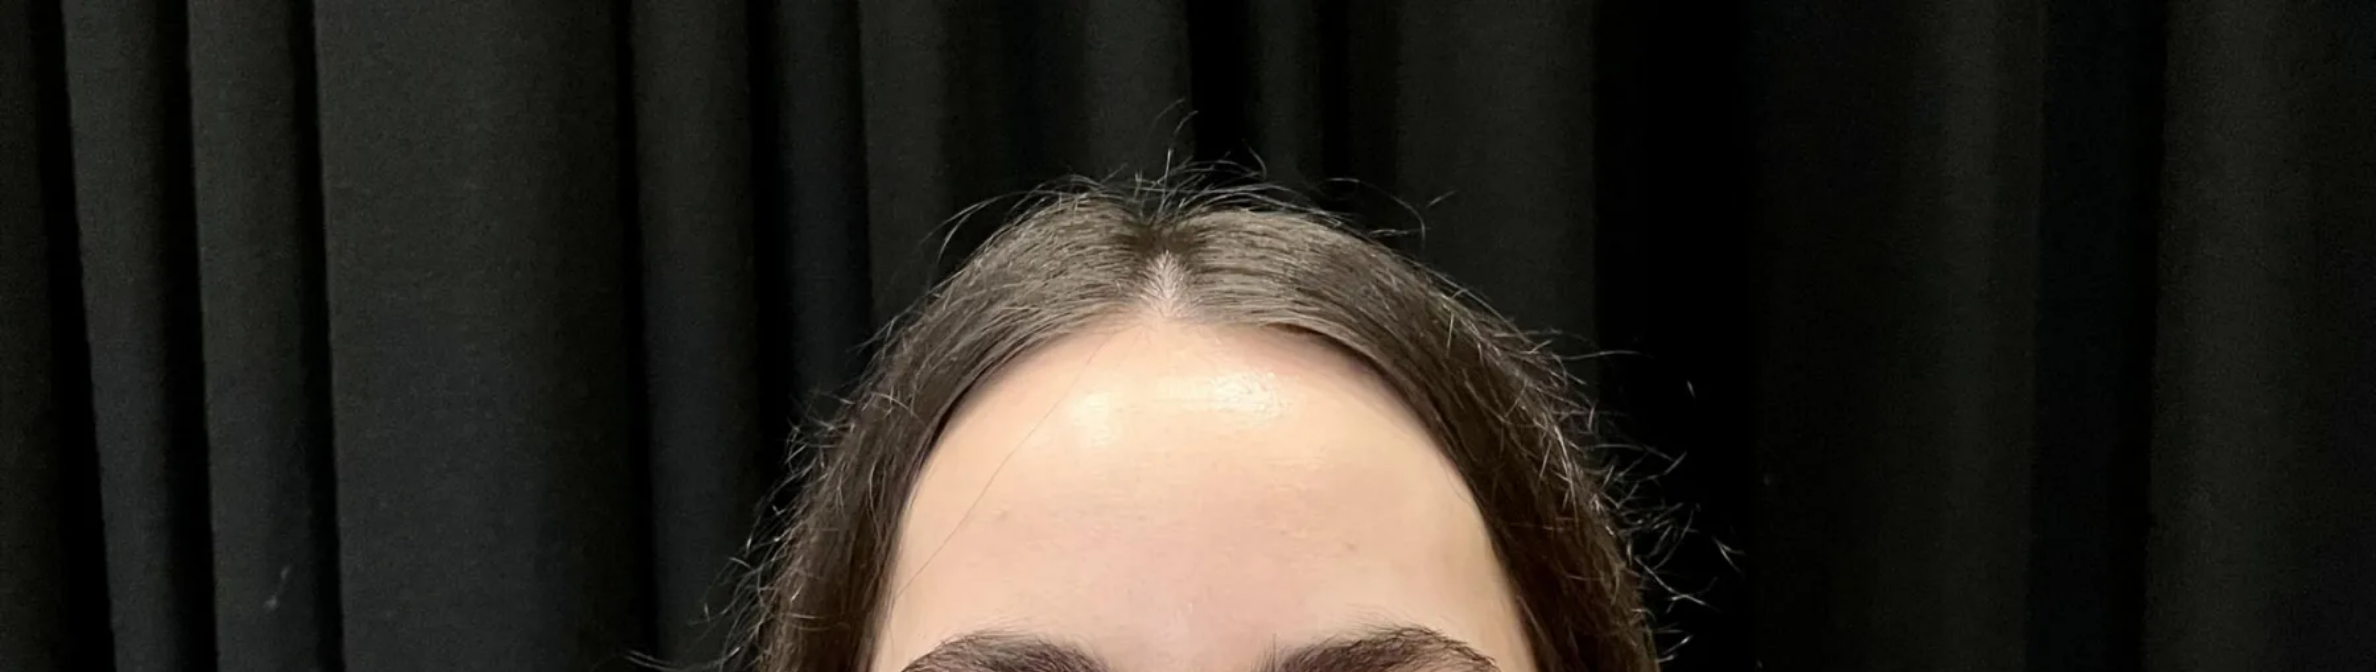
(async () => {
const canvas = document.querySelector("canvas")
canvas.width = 2376
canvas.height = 672
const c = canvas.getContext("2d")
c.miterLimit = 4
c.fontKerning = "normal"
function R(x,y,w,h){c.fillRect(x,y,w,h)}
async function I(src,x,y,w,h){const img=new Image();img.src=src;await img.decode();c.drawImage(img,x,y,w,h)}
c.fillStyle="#fff"
R(0,0,2376,672)
await I("1.png",0,0,2376,672)
})()
